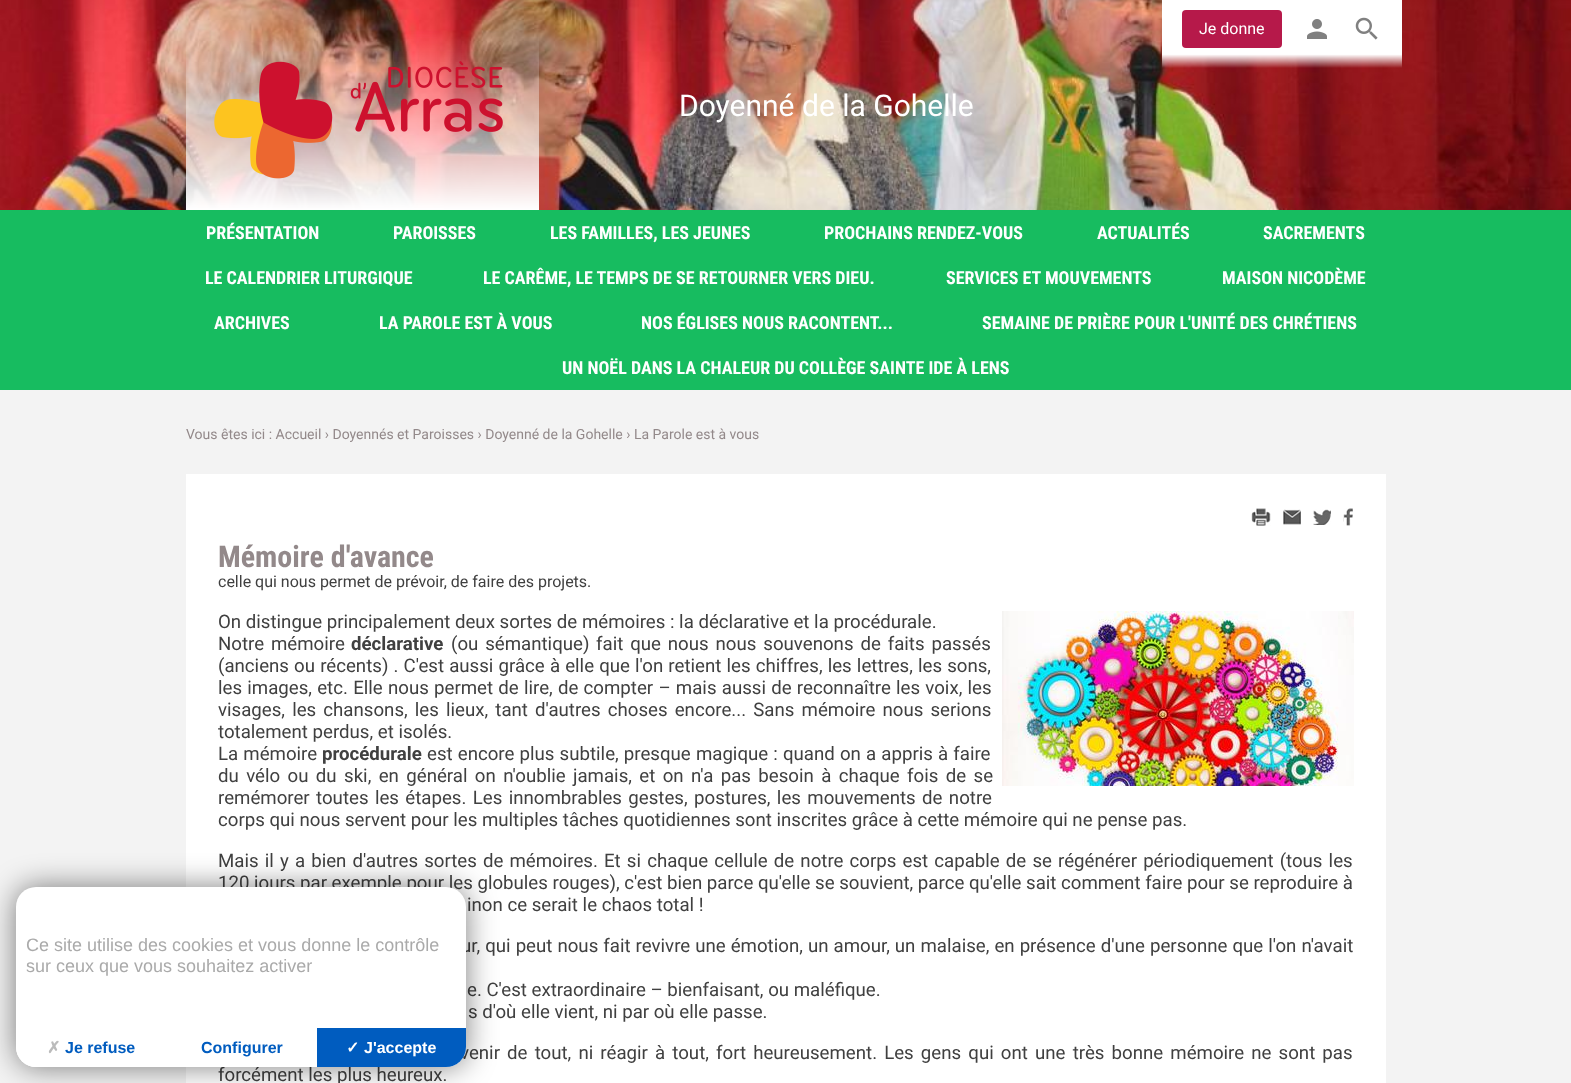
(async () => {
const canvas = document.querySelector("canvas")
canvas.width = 1571
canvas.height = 1083
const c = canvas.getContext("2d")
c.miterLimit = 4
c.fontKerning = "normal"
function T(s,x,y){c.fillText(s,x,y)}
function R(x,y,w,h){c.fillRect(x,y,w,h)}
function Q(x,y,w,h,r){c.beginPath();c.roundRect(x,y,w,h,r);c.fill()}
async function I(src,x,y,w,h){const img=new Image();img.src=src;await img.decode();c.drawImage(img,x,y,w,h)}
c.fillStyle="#f3f3f3"
R(0,0,1571,1083)
await I("1.png",0,0,1571,210)
c.fillStyle="#b6194a"
Q(1182,10,100,38,4)
c.font="16px Roboto"
c.fillStyle="#fff"
T("Je donne",1199,34)
await I("2.png",1307,19,20,20)
await I("3.png",1355,17,23,23)
await I("4.png",214,61,289,118)
c.font="30px Roboto"
T("Doyenné de la Gohelle",679,116)
c.fillStyle="#17bc60"
R(0,210,1571,180)
c.font="bold 18px Roboto Condensed"
c.fillStyle="#fff"
T("PRÉSENTATION",206,239)
T("PAROISSES",393,239)
T("LES FAMILLES, LES JEUNES",550,239)
T("PROCHAINS RENDEZ-VOUS",824,239)
T("ACTUALITÉS",1097,239)
T("SACREMENTS",1263,239)
T("LE CALENDRIER LITURGIQUE",205,284)
T("LE CARÊME, LE TEMPS DE SE RETOURNER VERS DIEU.",483,284)
T("SERVICES ET MOUVEMENTS",946,284)
T("MAISON NICODÈME",1222,284)
T("ARCHIVES",214,329)
T("LA PAROLE EST À VOUS",379,329)
T("NOS ÉGLISES NOUS RACONTENT...",641,329)
T("SEMAINE DE PRIÈRE POUR L'UNITÉ DES CHRÉTIENS",982,329)
T("UN NOËL DANS LA CHALEUR DU COLLÈGE SAINTE IDE À LENS",562,374)
c.font="14px Roboto"
c.fillStyle="#93898a"
T("Vous êtes ici : Accueil › Doyennés et Paroisses › Doyenné de la Gohelle › La Parole est à vous",186,439)
c.fillStyle="#fff"
R(186,474,1200,609)
await I("5.png",1251,508,20,18)
await I("6.png",1283,509,18,16)
await I("7.png",1313,509,18,16)
await I("8.png",1343,508,10,18)
c.font="bold 30px Roboto Condensed"
c.fillStyle="#93898a"
T("Mémoire d'avance",218,567)
c.font="16px Roboto"
c.fillStyle="#404040"
T("celle qui nous permet de prévoir, de faire des projets.",218,587)
c.font="18.67px Roboto"
T("On distingue principalement deux sortes de mémoires : la déclarative et la procédurale.",218,628)
await I("9.png",1002,611,352,175)
c.wordSpacing="2.25px"
T("Notre mémoire",218,650)
c.wordSpacing="0px"
c.font="bold 18.67px Roboto"
T("déclarative",351,650)
c.wordSpacing="2.25px"
c.font="18.67px Roboto"
T("(ou sémantique)",451,650)
T("fait que nous nous souvenons de faits passés",596,650)
c.wordSpacing="0.5px"
T("(anciens ou récents) . C'est aussi grâce à elle que l'on retient les chiffres, les lettres, les sons,",218,672)
c.wordSpacing="0.6px"
T("les images, etc. Elle nous permet de lire, de compter – mais aussi de reconnaître les voix, les",218,694)
c.wordSpacing="2.5px"
T("visages, les chansons, les lieux, tant d'autres choses encore... Sans mémoire nous serions",218,716)
c.wordSpacing="0px"
T("totalement perdus, et isolés.",218,738)
c.wordSpacing="0.5px"
T("La mémoire",218,760)
c.wordSpacing="0px"
c.font="bold 18.67px Roboto"
T("procédurale",322,760)
c.wordSpacing="0.5px"
c.font="18.67px Roboto"
T("est encore plus subtile, presque magique : quand on a appris à faire",427,760)
c.wordSpacing="2.75px"
T("du vélo ou du ski, en général on n'oublie jamais, et on n'a pas besoin à chaque fois de se",218,782)
c.wordSpacing="1.75px"
T("remémorer toutes les étapes. Les innombrables gestes, postures, les mouvements de notre",218,804)
c.wordSpacing="0px"
T("corps qui nous servent pour les multiples tâches quotidiennes sont inscrites grâce à cette mémoire qui ne pense pas.",218,826)
c.wordSpacing="1.5px"
T("Mais il y a bien d'autres sortes de mémoires. Et si chaque cellule de notre corps est capable de se régénérer périodiquement (tous les",218,867)
c.wordSpacing="0px"
T("120 jours par exemple pour les globules rouges), c'est bien parce qu'elle se souvient, parce qu'elle sait comment faire pour se reproduire à",218,889)
T("inon ce serait le chaos total !",467,911)
c.wordSpacing="0.4px"
T("ur, qui peut nous fait revivre une émotion, un amour, un malaise, en présence d'une personne que l'on n'avait",461,952)
c.wordSpacing="0px"
T("e. C'est extraordinaire – bienfaisant, ou maléfique.",467,996)
T("s d'où elle vient, ni par où elle passe.",468,1018)
c.wordSpacing="2.5px"
T("venir de tout, ni réagir à tout, fort heureusement. Les gens qui ont une très bonne mémoire ne sont pas",460,1059)
c.wordSpacing="0px"
T("forcément les plus heureux.",218,1081)
c.fillStyle="#00000080"
c.filter="blur(15px)"
c.beginPath()
c.roundRect(16,887,450,180,20)
c.fill()
c.filter="none"
c.fillStyle="#fff"
Q(16,887,450,180,20)
c.font="18px Liberation Sans"
c.fillStyle="#aaa"
T("Ce site utilise des cookies et vous donne le contrôle",26,951)
T("sur ceux que vous souhaitez activer",26,972)
c.fillStyle="#fff"
c.beginPath()
c.roundRect(16,1028,150,39,[0,0,0,20])
c.fill()
c.font="bold 16px DejaVu Sans"
c.fillStyle="#bbb"
T("✗",47,1053)
c.font="bold 16px Liberation Sans"
c.fillStyle="#005cbf"
T("Je refuse",65,1053)
c.beginPath()
c.roundRect(316,1028,150,39,[0,0,20,0])
c.fill()
c.fillStyle="#fff"
R(316,1028,1,39)
c.fillStyle="#005cbf"
T("Configurer",201,1053)
c.font="bold 16px DejaVu Sans"
c.fillStyle="#fff"
T("✓",346,1053)
c.font="bold 16px Liberation Sans"
T("J'accepte",364,1053)
})()
